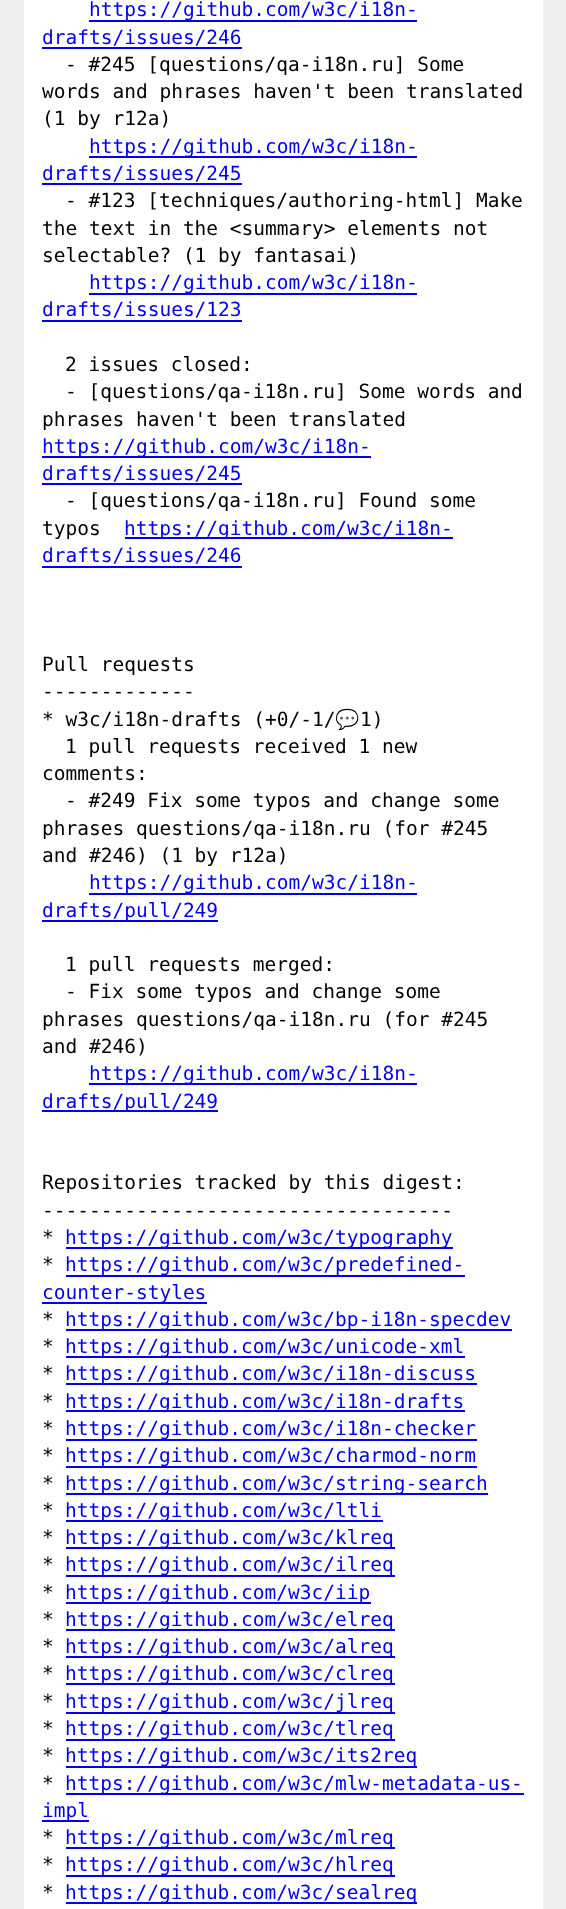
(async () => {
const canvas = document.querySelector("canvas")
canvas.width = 566
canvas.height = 1909
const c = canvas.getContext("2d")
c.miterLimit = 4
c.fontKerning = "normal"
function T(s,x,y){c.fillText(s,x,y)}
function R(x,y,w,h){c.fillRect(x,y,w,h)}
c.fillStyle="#eee"
R(0,0,566,1909)
c.fillStyle="#fff"
R(24,0,519,1909)
c.fillStyle="#00e"
R(89,20,328,2)
c.font="19.5px DejaVu Sans Mono"
T("https://github.com/w3c/i18n-",89,16)
T("drafts/issues/246",42,44)
R(42,47,200,2)
c.fillStyle="#000"
T("- #245 [questions/qa-i18n.ru] Some",65,71)
T("words and phrases haven't been translated",42,98)
T("(1 by r12a)",42,125)
c.fillStyle="#00e"
R(89,156,328,2)
T("https://github.com/w3c/i18n-",89,153)
T("drafts/issues/245",42,180)
R(42,183,200,2)
c.fillStyle="#000"
T("- #123 [techniques/authoring-html] Make",65,207)
T("the text in the <summary> elements not",42,235)
T("selectable? (1 by fantasai)",42,262)
c.fillStyle="#00e"
R(89,293,328,2)
T("https://github.com/w3c/i18n-",89,289)
T("drafts/issues/123",42,316)
R(42,320,200,2)
c.fillStyle="#000"
T("2 issues closed:",65,371)
T("- [questions/qa-i18n.ru] Some words and",65,398)
T("phrases haven't been translated",42,426)
c.fillStyle="#00e"
R(42,456,329,2)
T("https://github.com/w3c/i18n-",42,453)
T("drafts/issues/245",42,480)
R(42,483,200,2)
c.fillStyle="#000"
T("- [questions/qa-i18n.ru] Found some",65,507)
T("typos",42,535)
c.fillStyle="#00e"
R(125,537,328,2)
T("https://github.com/w3c/i18n-",124,535)
T("drafts/issues/246",42,562)
R(42,566,200,2)
c.fillStyle="#000"
T("Pull requests",42,671)
T("-------------",42,698)
T("* w3c/i18n-drafts (+0/-1/",42,726)
c.font="19.5px Noto Color Emoji"
T("💬",335,726)
c.font="19.5px DejaVu Sans Mono"
T("1)",360,726)
T("1 pull requests received 1 new",65,753)
T("comments:",42,780)
T("- #249 Fix some typos and change some",65,807)
T("phrases questions/qa-i18n.ru (for #245",42,835)
T("and #246) (1 by r12a)",42,862)
c.fillStyle="#00e"
R(89,893,328,2)
T("https://github.com/w3c/i18n-",89,889)
R(42,920,176,2)
T("drafts/pull/249",42,917)
c.fillStyle="#000"
T("1 pull requests merged:",65,971)
T("- Fix some typos and change some",65,998)
T("phrases questions/qa-i18n.ru (for #245",42,1026)
T("and #246)",42,1053)
c.fillStyle="#00e"
R(89,1083,328,2)
T("https://github.com/w3c/i18n-",89,1080)
R(42,1110,176,2)
T("drafts/pull/249",42,1108)
c.fillStyle="#000"
T("Repositories tracked by this digest:",42,1189)
T("-----------------------------------",42,1217)
T("*",42,1244)
c.fillStyle="#00e"
R(66,1247,387,2)
T("https://github.com/w3c/typography",65,1244)
c.fillStyle="#000"
T("*",42,1271)
c.fillStyle="#00e"
R(66,1275,399,2)
T("https://github.com/w3c/predefined-",65,1271)
R(42,1302,165,2)
T("counter-styles",42,1299)
c.fillStyle="#000"
T("*",42,1326)
c.fillStyle="#00e"
R(66,1329,446,2)
T("https://github.com/w3c/bp-i18n-specdev",65,1326)
c.fillStyle="#000"
T("*",42,1353)
c.fillStyle="#00e"
R(66,1356,399,2)
T("https://github.com/w3c/unicode-xml",65,1353)
c.fillStyle="#000"
T("*",42,1380)
c.fillStyle="#00e"
R(66,1383,411,2)
T("https://github.com/w3c/i18n-discuss",65,1380)
c.fillStyle="#000"
T("*",42,1408)
c.fillStyle="#00e"
R(66,1410,399,2)
T("https://github.com/w3c/i18n-drafts",65,1408)
c.fillStyle="#000"
T("*",42,1435)
c.fillStyle="#00e"
R(66,1439,411,2)
T("https://github.com/w3c/i18n-checker",65,1435)
c.fillStyle="#000"
T("*",42,1462)
c.fillStyle="#00e"
R(66,1466,411,2)
T("https://github.com/w3c/charmod-norm",65,1462)
c.fillStyle="#000"
T("*",42,1490)
c.fillStyle="#00e"
R(66,1493,422,2)
T("https://github.com/w3c/string-search",65,1490)
c.fillStyle="#000"
T("*",42,1517)
c.fillStyle="#00e"
R(66,1520,317,2)
T("https://github.com/w3c/ltli",65,1517)
c.fillStyle="#000"
T("*",42,1544)
c.fillStyle="#00e"
R(66,1547,329,2)
T("https://github.com/w3c/klreq",65,1544)
c.fillStyle="#000"
T("*",42,1571)
c.fillStyle="#00e"
R(66,1575,329,2)
T("https://github.com/w3c/ilreq",65,1571)
c.fillStyle="#000"
T("*",42,1599)
c.fillStyle="#00e"
R(66,1602,305,2)
T("https://github.com/w3c/iip",65,1599)
c.fillStyle="#000"
T("*",42,1626)
c.fillStyle="#00e"
R(66,1629,329,2)
T("https://github.com/w3c/elreq",65,1626)
c.fillStyle="#000"
T("*",42,1653)
c.fillStyle="#00e"
R(66,1656,329,2)
T("https://github.com/w3c/alreq",65,1653)
c.fillStyle="#000"
T("*",42,1680)
c.fillStyle="#00e"
R(66,1683,329,2)
T("https://github.com/w3c/clreq",65,1680)
c.fillStyle="#000"
T("*",42,1708)
c.fillStyle="#00e"
R(66,1712,329,2)
T("https://github.com/w3c/jlreq",65,1708)
c.fillStyle="#000"
T("*",42,1735)
c.fillStyle="#00e"
R(66,1739,329,2)
T("https://github.com/w3c/tlreq",65,1735)
c.fillStyle="#000"
T("*",42,1762)
c.fillStyle="#00e"
R(66,1766,351,2)
T("https://github.com/w3c/its2req",65,1762)
c.fillStyle="#000"
T("*",42,1790)
c.fillStyle="#00e"
R(66,1793,458,2)
T("https://github.com/w3c/mlw-metadata-us-",65,1790)
R(42,1820,47,2)
T("impl",42,1817)
c.fillStyle="#000"
T("*",42,1844)
c.fillStyle="#00e"
R(66,1847,329,2)
T("https://github.com/w3c/mlreq",65,1844)
c.fillStyle="#000"
T("*",42,1871)
c.fillStyle="#00e"
R(66,1875,329,2)
T("https://github.com/w3c/hlreq",65,1871)
c.fillStyle="#000"
T("*",42,1899)
c.fillStyle="#00e"
R(66,1902,351,2)
T("https://github.com/w3c/sealreq",65,1899)
})()
